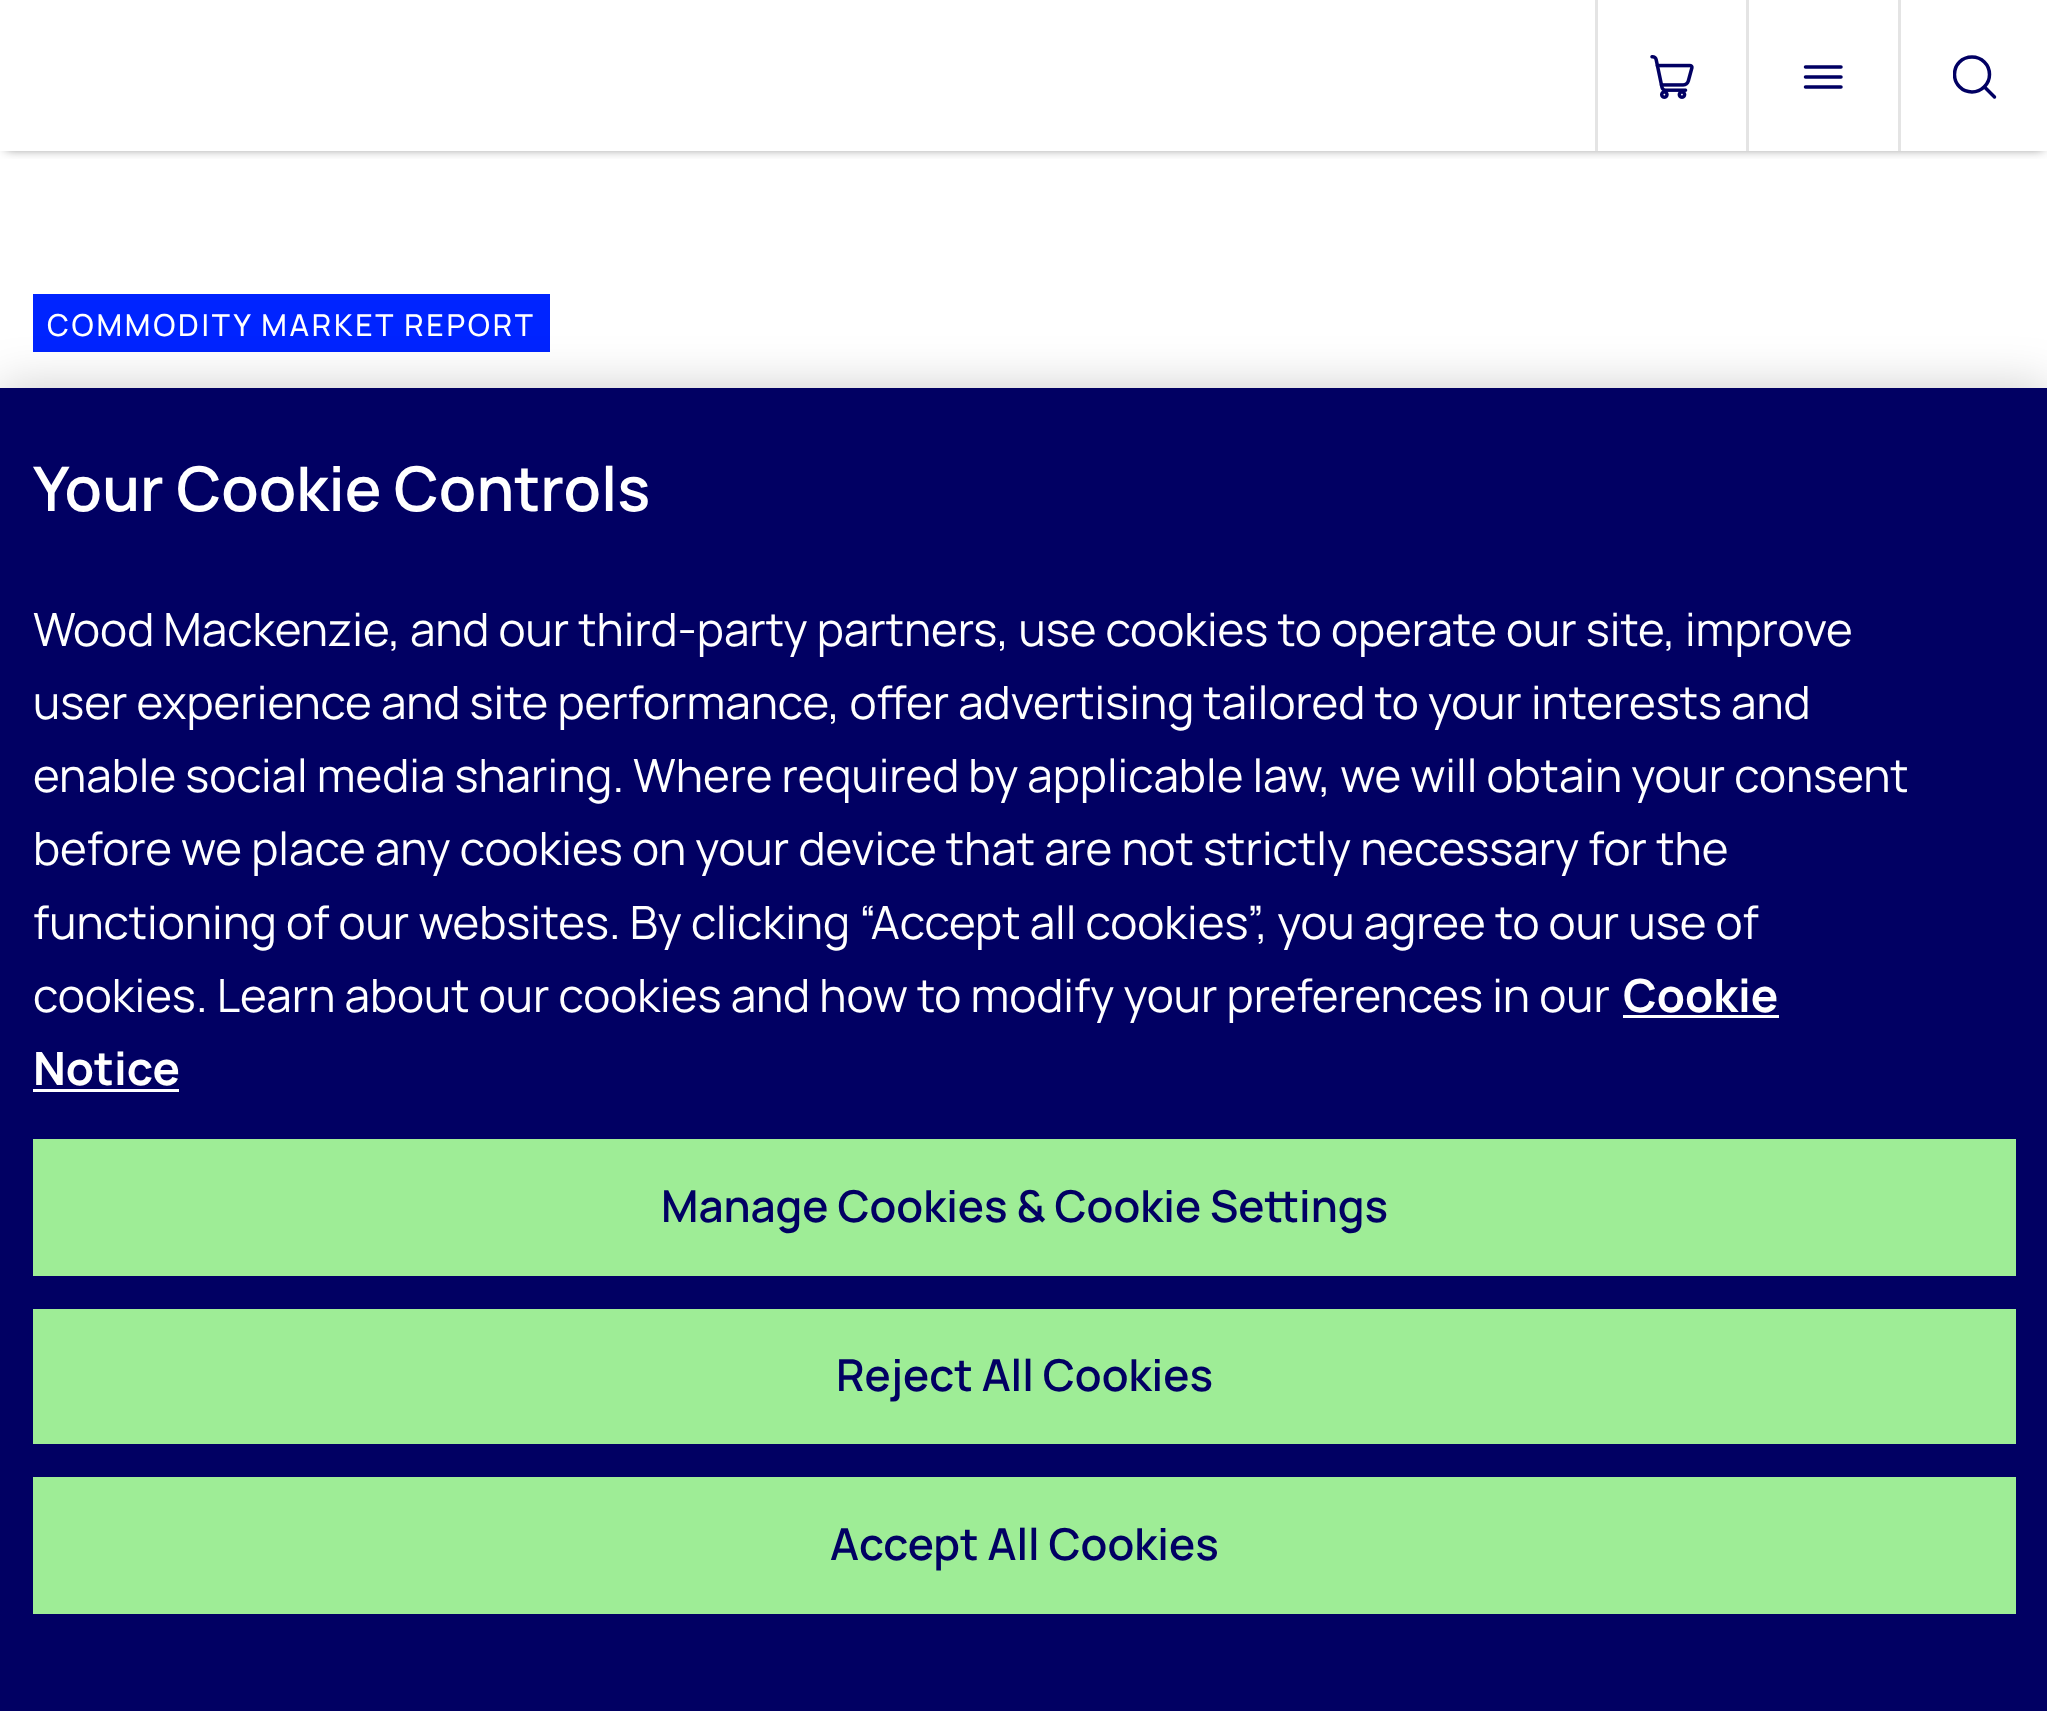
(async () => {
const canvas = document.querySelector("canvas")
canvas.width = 2047
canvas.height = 1711
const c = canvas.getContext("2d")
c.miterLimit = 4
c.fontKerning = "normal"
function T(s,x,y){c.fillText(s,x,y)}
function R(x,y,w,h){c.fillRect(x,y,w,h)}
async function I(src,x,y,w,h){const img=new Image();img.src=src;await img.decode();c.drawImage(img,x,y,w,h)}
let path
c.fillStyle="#fff"
R(0,0,2047,1711)
c.save()
c.beginPath()
c.rect(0,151,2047,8)
c.clip()
c.fillStyle="#00000080"
c.filter="blur(5.5px)"
c.beginPath()
c.rect(6,8,2037,141)
c.fill()
c.filter="none"
c.restore()
c.fillStyle="#e4e4e4"
R(1595,0,3,151)
await I("1.png",1650,55,44,44)
path = new Path2D("M1841 67h-35.5m35.5 10h-35.5m35.5 10h-35.5")
c.strokeStyle="#010063"
c.lineWidth=3.5
c.lineCap="round"
c.lineJoin="round"
c.stroke(path)
R(1746,0,3,151)
c.save()
c.beginPath()
c.rect(1953,55,44,44)
c.clip()
path = new Path2D("M1954.5 74.5c0 9.5 7.5 17.5 17.5 17.5c9.5 0 17.5-8 17.5-17.5c0-10-8-17.5-17.5-17.5c-10 0-17.5 7.5-17.5 17.5z")
c.stroke(path)
c.restore()
path = new Path2D("M1994.5 97l-10-10")
c.stroke(path)
R(1898,0,3,151)
c.fillStyle="#0024ff"
R(33,294,517,58)
c.letterSpacing="2.75px"
c.font="500 30.25px Manrope"
c.fillStyle="#fff"
T("COMMODITY MARKET REPORT",47,336)
c.fillStyle="#00000033"
c.filter="blur(25px)"
c.beginPath()
c.rect(0,388,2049,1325)
c.fill()
c.filter="none"
c.fillStyle="#010063"
R(0,388,2047,1323)
c.letterSpacing="0px"
c.font="600 61.6px Manrope"
c.fillStyle="#fff"
T("Your Cookie Controls",33,511)
c.wordSpacing="-0.1px"
c.font="45.75px Manrope"
T("Wood Mackenzie, and our third-party partners, use cookies to operate our site, improve",33,646)
T("user experience and site performance, offer advertising tailored to your interests and",33,719)
T("enable social media sharing. Where required by applicable law, we will obtain your consent",33,792)
c.wordSpacing="0px"
T("before we place any cookies on your device that are not strictly necessary for the",33,865)
T("functioning of our websites. By clicking “Accept all cookies”, you agree to our use of",33,939)
T("cookies. Learn about our cookies and how to modify your preferences in our",33,1012)
c.font="bold 45.75px Manrope"
T("Cookie",1623,1012)
R(1623,1015,156,3)
T("Notice",33,1085)
R(33,1089,146,3)
c.fillStyle="#9eed96"
R(33,1139,1983,137)
c.font="600 44px Manrope"
c.fillStyle="#010063"
T("Manage Cookies & Cookie Settings",661,1222)
c.fillStyle="#9eed96"
R(33,1309,1983,135)
c.fillStyle="#010063"
T("Reject All Cookies",836,1391)
c.fillStyle="#9eed96"
R(33,1477,1983,137)
c.fillStyle="#010063"
T("Accept All Cookies",830,1560)
})()
